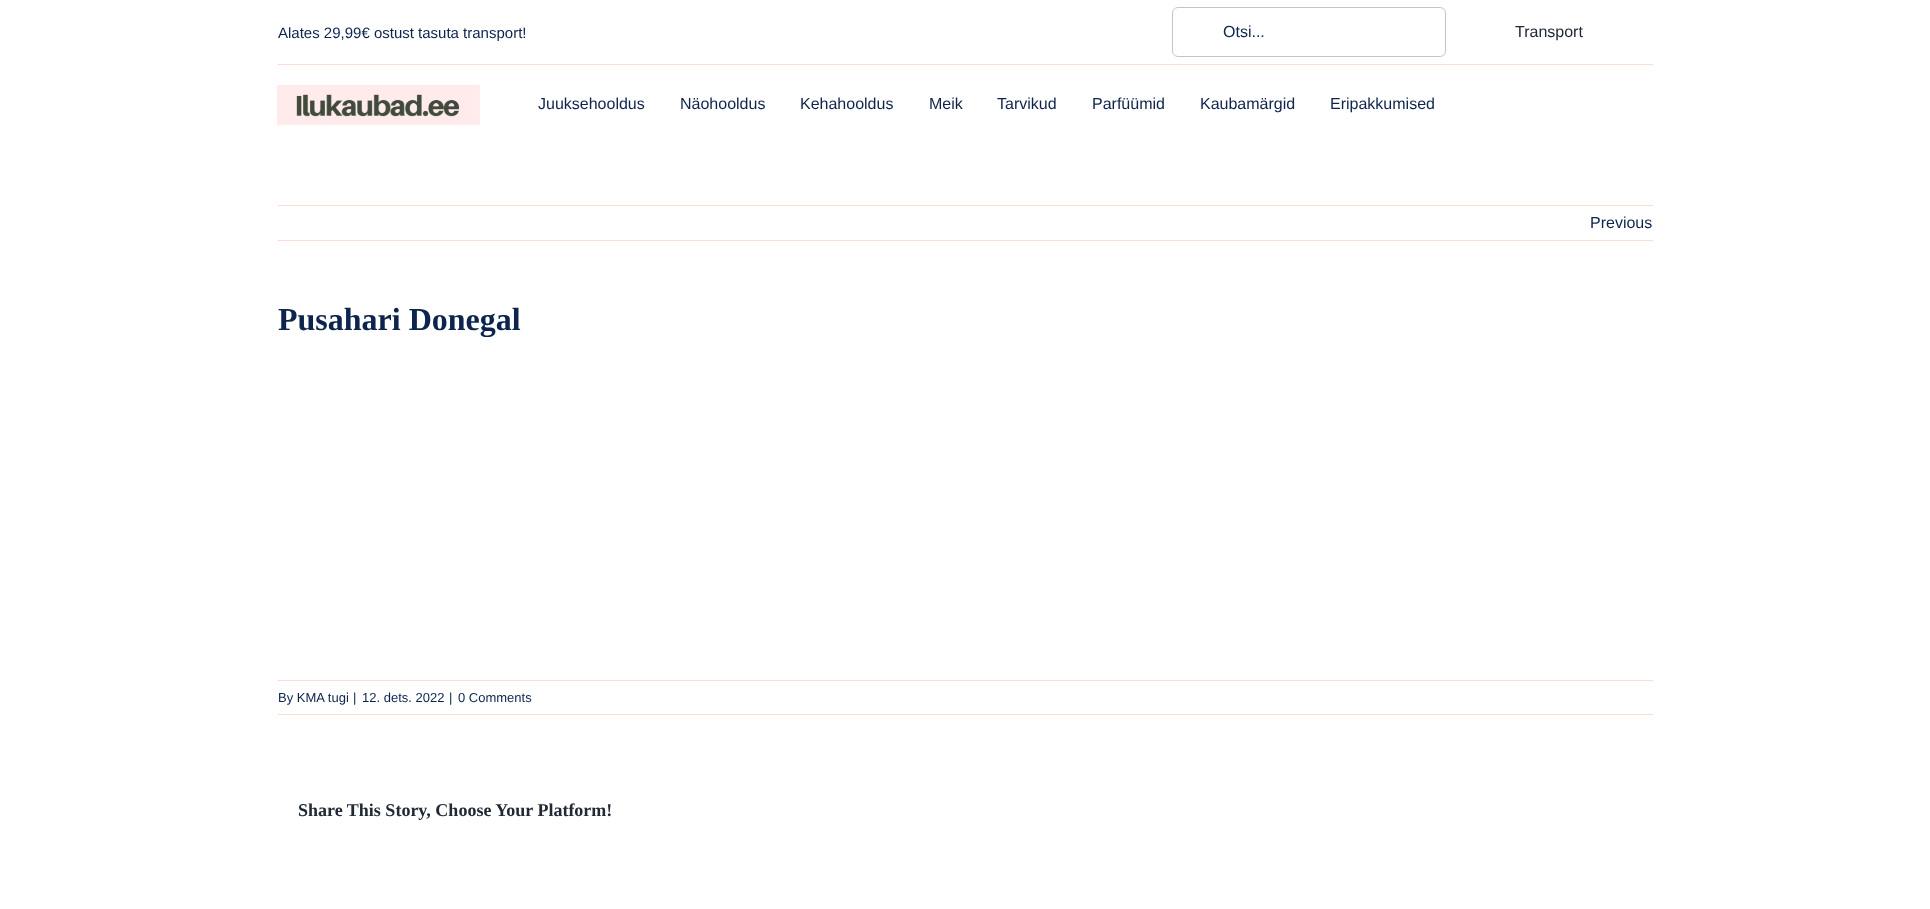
(async () => {
const canvas = document.querySelector("canvas")
canvas.width = 1930
canvas.height = 909
const c = canvas.getContext("2d")
c.miterLimit = 4
c.fontKerning = "normal"
function T(s,x,y){c.fillText(s,x,y)}
function R(x,y,w,h){c.fillRect(x,y,w,h)}
async function I(src,x,y,w,h){const img=new Image();img.src=src;await img.decode();c.drawImage(img,x,y,w,h)}
c.fillStyle="#fff"
R(0,0,1930,909)
c.font="15px Liberation Sans"
c.fillStyle="#0d244c"
T("Alates 29,99€ ostust tasuta transport!",278,38)
c.beginPath()
c.roundRect(1172.5,7.5,273,49,5.5)
c.strokeStyle="#c0c6d0"
c.stroke()
c.font="16px Liberation Sans"
T("Otsi...",1223,37)
c.fillStyle="#212934"
T("Transport",1515,37)
c.fillStyle="#fedcd2"
R(278,64,1375,1)
await I("1.png",277,85,203,40)
c.fillStyle="#0d244c"
T("Juuksehooldus",538,109)
T("Näohooldus",680,109)
T("Kehahooldus",800,109)
T("Meik",929,109)
T("Tarvikud",997,109)
T("Parfüümid",1092,109)
T("Kaubamärgid",1200,109)
T("Eripakkumised",1330,109)
c.fillStyle="#fedcd2"
R(278,205,1375,1)
R(278,240,1375,1)
c.fillStyle="#0d244c"
T("Previous",1590,228)
c.font="bold 32px Liberation Serif"
T("Pusahari Donegal",278,330)
c.fillStyle="#fedcd2"
R(278,680,1375,1)
R(278,714,1375,1)
c.font="13px Liberation Sans"
c.fillStyle="#0d244c"
T("By KMA tugi",278,702)
T("|",353,702)
T("12. dets. 2022",362,702)
T("|",449,702)
T("0 Comments",458,702)
c.font="bold 18px Liberation Serif"
c.fillStyle="#212934"
T("Share This Story, Choose Your Platform!",298,816)
})()
